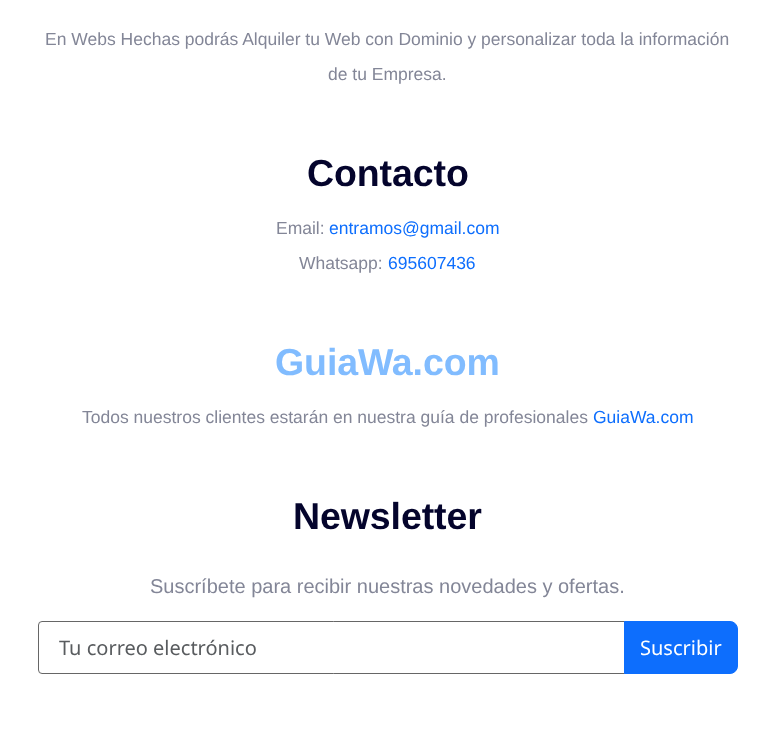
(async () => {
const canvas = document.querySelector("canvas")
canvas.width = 774
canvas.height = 741
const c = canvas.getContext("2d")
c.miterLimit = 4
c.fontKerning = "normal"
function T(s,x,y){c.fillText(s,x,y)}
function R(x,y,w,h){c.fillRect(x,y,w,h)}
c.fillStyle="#fff"
R(0,0,774,741)
c.font="17.5px Liberation Sans"
c.fillStyle="#838697"
T("En Webs Hechas podrás Alquiler tu Web con Dominio y personalizar toda la información",45,45)
T("de tu Empresa.",328,80)
c.letterSpacing="-0.1px"
c.font="bold 37.5px Liberation Sans"
c.fillStyle="#04042c"
T("Contacto",307,186)
c.letterSpacing="0px"
c.font="17.5px Liberation Sans"
c.fillStyle="#838697"
T("Email:",276,234)
c.fillStyle="#0d6efd"
T("entramos@gmail.com",329,234)
c.fillStyle="#838697"
T("Whatsapp:",299,269)
c.fillStyle="#0d6efd"
T("695607436",388,269)
c.letterSpacing="-0.1px"
c.font="bold 37.5px Liberation Sans"
c.fillStyle="#81bcff"
T("GuiaWa.com",275,375)
c.letterSpacing="0px"
c.font="17.5px Liberation Sans"
c.fillStyle="#838697"
T("Todos nuestros clientes estarán en nuestra guía de profesionales",82,423)
c.fillStyle="#0d6efd"
T("GuiaWa.com",593,423)
c.letterSpacing="-0.1px"
c.font="bold 37.5px Liberation Sans"
c.fillStyle="#04042c"
T("Newsletter",293,529)
c.letterSpacing="0px"
c.font="20px Liberation Sans"
c.fillStyle="#838697"
T("Suscríbete para recibir nuestras novedades y ofertas.",150,593)
c.beginPath()
c.roundRect(38.5,621.5,586,52,[3.5,0,0,3.5])
c.strokeStyle="#666"
c.stroke()
c.font="20px Noto Sans"
c.fillStyle="#595c5f"
T("Tu correo electrónico",59,655)
c.fillStyle="#0d6efd"
c.beginPath()
c.roundRect(624.5,621.5,113,52,[0,7.5,7.5,0])
c.fill()
c.strokeStyle="#0d6efd"
c.stroke()
c.fillStyle="#fff"
T("Suscribir",640,655)
})()
